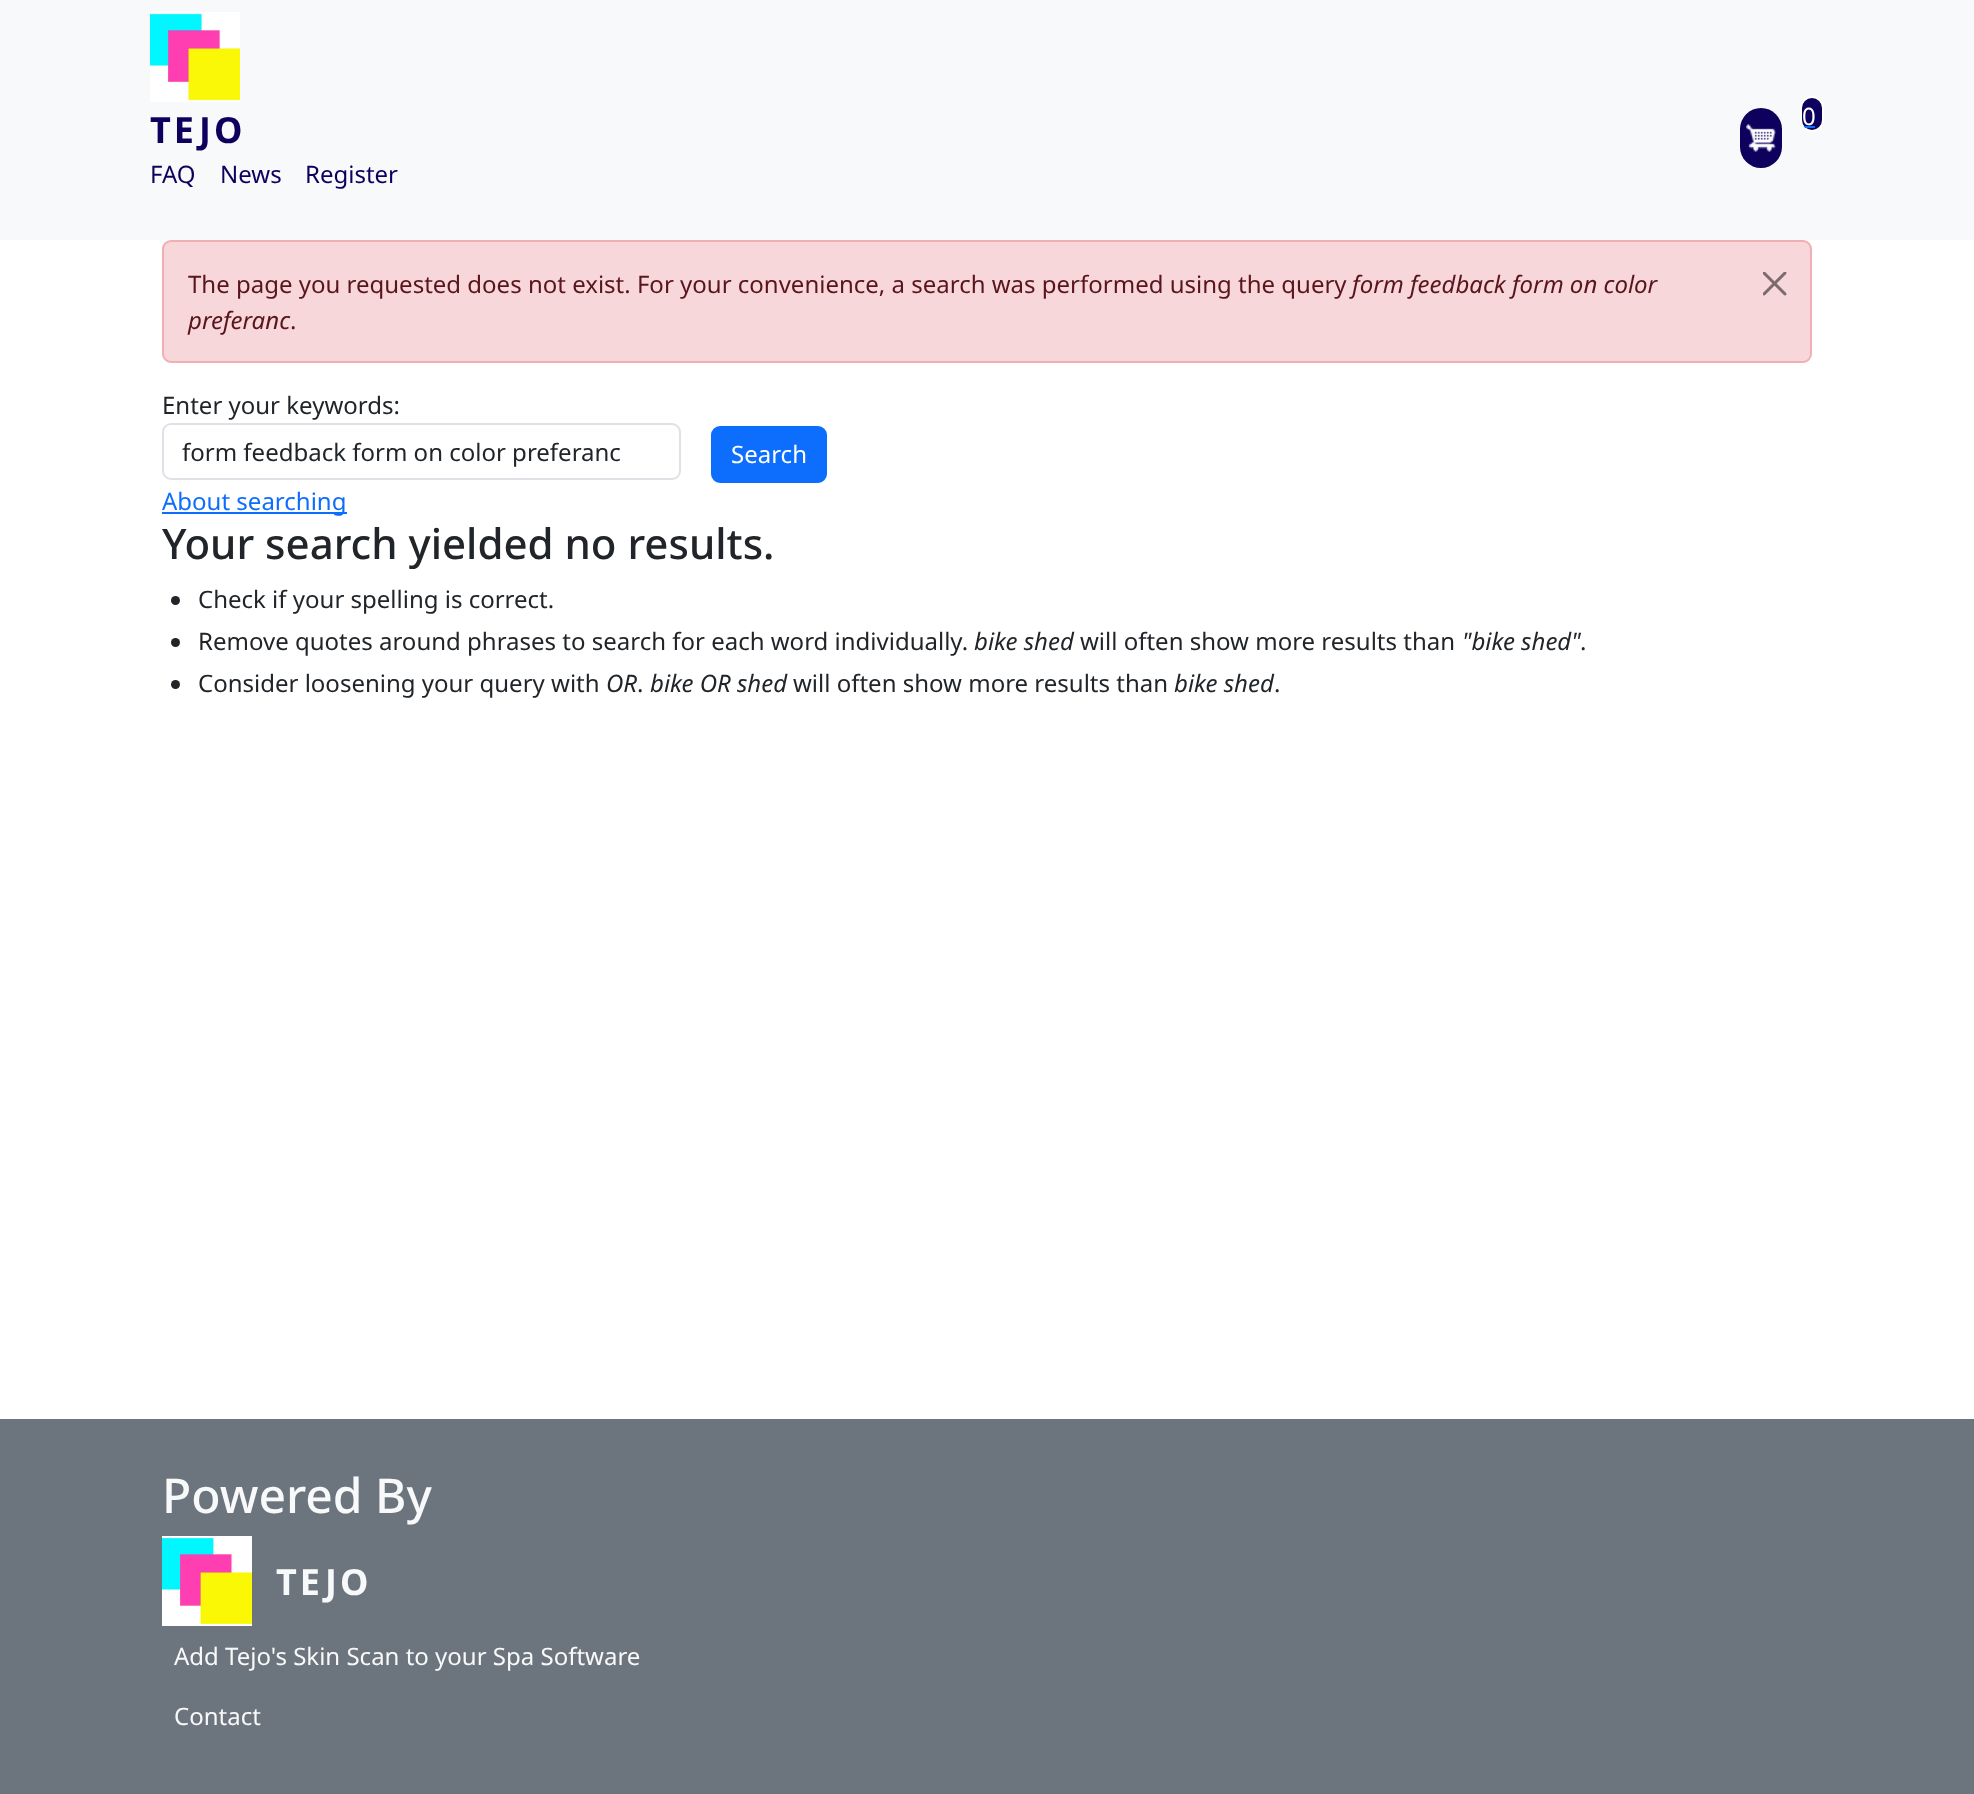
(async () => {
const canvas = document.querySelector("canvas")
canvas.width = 1974
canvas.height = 1794
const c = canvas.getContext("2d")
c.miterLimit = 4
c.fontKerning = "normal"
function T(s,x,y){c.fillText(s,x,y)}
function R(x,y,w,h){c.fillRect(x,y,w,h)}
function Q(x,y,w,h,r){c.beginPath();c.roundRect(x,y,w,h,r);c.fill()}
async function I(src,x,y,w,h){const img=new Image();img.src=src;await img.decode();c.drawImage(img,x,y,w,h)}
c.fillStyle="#fff"
R(0,0,1974,1794)
c.fillStyle="#f8f9fa"
R(0,0,1974,240)
await I("1.png",150,12,90,90)
c.letterSpacing="3px"
c.font="bold 36px Noto Sans"
c.fillStyle="#0e015e"
T("TEJO",150,143)
c.letterSpacing="0px"
c.font="24px Noto Sans"
T("FAQ",150,183)
T("News",220,183)
T("Register",305,183)
Q(1740,108,42,60,21)
c.beginPath()
c.roundRect(1801,97,22,34,11)
c.fill()
c.strokeStyle="#fff"
c.lineWidth=2
c.stroke()
c.fillStyle="#fff"
T("0",1802,125)
c.save()
c.beginPath()
c.roundRect(1802,98,21,33,10.5)
c.clip()
c.fillStyle="#0d6efd"
R(1802,126,13,2)
c.restore()
await I("2.png",1746,124,30,28)
c.fillStyle="#f8d7da"
c.beginPath()
c.roundRect(163,241,1648,121,8)
c.fill()
c.strokeStyle="#f1aeb5"
c.stroke()
c.fillStyle="#58151c"
T("The page you requested does not exist. For your convenience, a search was performed using the query",188,293)
c.font="italic 24px Noto Sans"
T("form feedback form on color",1352,293)
await I("3.png",1763,272,24,24)
T("preferanc",188,329)
c.font="24px Noto Sans"
T(".",290,329)
c.fillStyle="#212529"
T("Enter your keywords:",162,414)
c.beginPath()
c.roundRect(163,424,517,55,8)
c.strokeStyle="#dee2e6"
c.stroke()
T("form feedback form on color preferanc",182,461)
c.fillStyle="#0d6efd"
c.beginPath()
c.roundRect(712,427,114,55,8)
c.fill()
c.strokeStyle="#0d6efd"
c.stroke()
c.fillStyle="#fff"
T("Search",731,463)
c.fillStyle="#0d6efd"
R(162,512,185,2)
T("About searching",162,510)
c.font="500 42px Noto Sans"
c.fillStyle="#212529"
T("Your search yielded no results.",162,559)
c.beginPath()
c.arc(175.5,600.5,4.5,0,7)
c.fill()
c.font="24px Noto Sans"
T("Check if your spelling is correct.",198,608)
c.beginPath()
c.arc(175.5,642.5,4.5,0,7)
c.fill()
T("Remove quotes around phrases to search for each word individually.",198,650)
c.font="italic 24px Noto Sans"
T("bike shed",974,650)
c.font="24px Noto Sans"
T("will often show more results than",1080,650)
c.font="italic 24px Noto Sans"
T("\"bike shed\"",1462,650)
c.font="24px Noto Sans"
T(".",1580,650)
c.beginPath()
c.arc(175.5,684.5,4.5,0,7)
c.fill()
T("Consider loosening your query with",198,692)
c.font="italic 24px Noto Sans"
T("OR",606,692)
T("bike OR shed",650,692)
c.font="24px Noto Sans"
T("will often show more results than",793,692)
c.font="italic 24px Noto Sans"
T("bike shed",1174,692)
c.font="24px Noto Sans"
T(".",637,692)
T(".",1274,692)
c.fillStyle="#6c757d"
R(0,1419,1974,375)
c.font="500 48px Noto Sans"
c.fillStyle="#f8f9fa"
T("Powered By",162,1513)
await I("4.png",162,1536,90,90)
c.letterSpacing="3px"
c.font="bold 36px Noto Sans"
T("TEJO",276,1595)
c.letterSpacing="0px"
c.font="24px Noto Sans"
T("Add Tejo's Skin Scan to your Spa Software",174,1665)
T("Contact",174,1725)
})()
